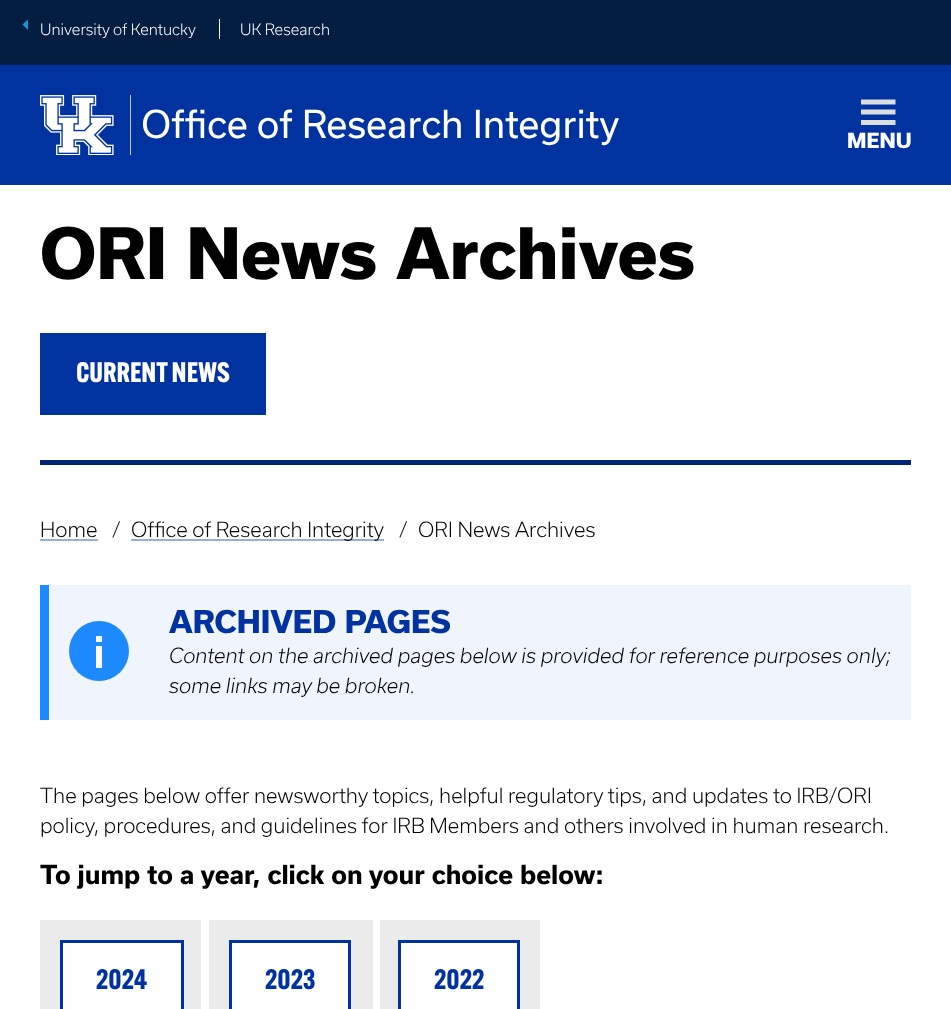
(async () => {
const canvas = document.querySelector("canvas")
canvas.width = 951
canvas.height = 1009
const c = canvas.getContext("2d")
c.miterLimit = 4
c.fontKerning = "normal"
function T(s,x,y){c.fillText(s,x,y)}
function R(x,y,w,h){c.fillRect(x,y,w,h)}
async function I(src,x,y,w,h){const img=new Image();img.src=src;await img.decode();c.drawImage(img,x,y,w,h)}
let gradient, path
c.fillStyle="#fff"
R(0,0,951,1009)
c.fillStyle="#041e42"
R(0,0,951,65)
c.fillStyle="#1897d4"
path = new Path2D("M28 19.5v10.5l-5.5-5.5z")
c.fill(path)
c.font="300 15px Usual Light"
c.fillStyle="#fff"
T("University of Kentucky",40,35)
R(219,19,1,20)
T("UK Research",240,35)
c.fillStyle="#0033a0"
R(0,65,951,120)
c.fillStyle="#c8c8c7"
R(130,95,1,60)
await I("1.png",40,95,74,60)
c.font="36.75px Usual"
c.fillStyle="#fff"
T("Office of Research Integrity",141,138)
c.fillStyle="#dcddde"
path = new Path2D("M861 99.5h34.5v5h-34.5zm0 10h34.5v5h-34.5zm0 10.5h34.5v5h-34.5z")
c.fill(path)
c.font="800 20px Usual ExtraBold"
c.fillStyle="#fff"
T("MENU",847,148)
c.fillStyle="#002678"
R(40,460,871,5)
c.font="800 67.5px Usual ExtraBold"
c.fillStyle="#000"
T("ORI News Archives",40,279)
c.fillStyle="#0033a0"
R(40,333,226,82)
c.font="bold 27.5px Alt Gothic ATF"
c.fillStyle="#fff"
T("CURRENT NEWS",76,382)
c.font="300 20px Usual Light"
c.fillStyle="#000"
T("Home",40,537)
gradient = c.createLinearGradient(69,541,69,519)
gradient.addColorStop(0,"#99add9")
gradient.addColorStop(.11,"#99add9")
gradient.addColorStop(.11,"#fff")
gradient.addColorStop(1,"#fff")
c.fillStyle = gradient
R(40,539,58,2)
c.fillStyle="#000"
T("/",112,537)
gradient = c.createLinearGradient(258,541,258,519)
gradient.addColorStop(0,"#99add9")
gradient.addColorStop(.11,"#99add9")
gradient.addColorStop(.11,"#fff")
gradient.addColorStop(1,"#fff")
c.fillStyle = gradient
R(131,539,253,2)
c.fillStyle="#000"
T("Office of Research Integrity",131,537)
T("/",399,537)
T("ORI News Archives",418,537)
c.fillStyle="#eff4fd"
R(49,585,862,135)
c.fillStyle="#1e8aff"
R(40,585,9,135)
c.beginPath()
c.arc(99,651,30,0,7)
c.fill()
c.fillStyle="#fff"
R(96,636,6,6)
R(96,646,6,22)
c.font="800 30px Usual ExtraBold"
c.fillStyle="#0033a0"
T("ARCHIVED PAGES",169,633)
c.font="italic 300 20px Usual Light"
c.fillStyle="#000"
T("Content on the archived pages below is provided for reference purposes only;",169,663)
T("some links may be broken.",169,693)
c.font="300 20px Usual Light"
T("The pages below offer newsworthy topics, helpful regulatory tips, and updates to IRB/ORI",40,803)
T("policy, procedures, and guidelines for IRB Members and others involved in human research.",40,833)
c.font="bold 25px Usual"
T("To jump to a year, click on your choice below:",40,884)
c.fillStyle="#ebebeb"
R(40,920,161,89)
c.fillStyle="#fff"
c.beginPath()
c.rect(61.5,941.5,121,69)
c.fill()
c.strokeStyle="#0033a0"
c.lineWidth=3
c.stroke()
c.font="bold 27.5px Alt Gothic ATF"
c.fillStyle="#0033a0"
T("2024",96,989)
c.fillStyle="#ebebeb"
R(209,920,164,89)
c.fillStyle="#fff"
c.beginPath()
c.rect(230.5,941.5,119,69)
c.fill()
c.stroke()
c.fillStyle="#0033a0"
T("2023",265,989)
c.fillStyle="#ebebeb"
R(380,920,160,89)
c.fillStyle="#fff"
c.beginPath()
c.rect(399.5,941.5,119,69)
c.fill()
c.stroke()
c.fillStyle="#0033a0"
T("2022",434,989)
})()
